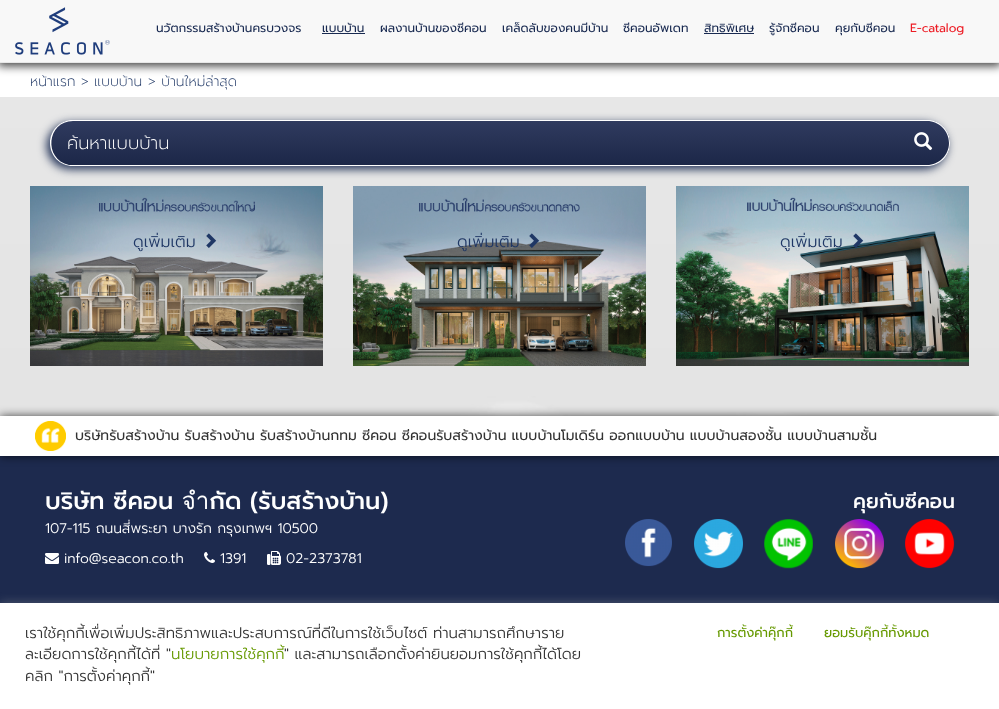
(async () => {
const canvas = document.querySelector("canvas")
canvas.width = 999
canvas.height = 709
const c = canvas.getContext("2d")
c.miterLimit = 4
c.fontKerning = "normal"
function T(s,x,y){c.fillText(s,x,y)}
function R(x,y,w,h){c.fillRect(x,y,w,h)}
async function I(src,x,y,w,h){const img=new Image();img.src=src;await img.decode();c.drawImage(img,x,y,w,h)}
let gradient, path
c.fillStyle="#fff"
R(0,0,999,709)
await I("1.png",0,97,999,319)
c.fillStyle="#000000bf"
c.filter="blur(5px)"
c.beginPath()
c.rect(-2,-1,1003,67)
c.fill()
c.filter="none"
c.fillStyle="#f8f8f8"
R(0,0,999,62)
c.fillStyle="#e7e7e7"
R(0,62,999,1)
await I("2.png",15,7,95,48)
c.font="12px Prompt"
c.fillStyle="#192a51"
T("นวัตกรรมสร้างบ้านครบวงจร",156,32)
T("แบบบ้าน",322,32)
R(322,33,43,1)
T("ผลงานบ้านของซีคอน",380,32)
T("เคล็ดลับของคนมีบ้าน",502,32)
T("ซีคอนอัพเดท",623,32)
T("สิทธิพิเศษ",704,32)
R(704,33,50,1)
T("รู้จักซีคอน",769,32)
T("คุยกับซีคอน",835,32)
c.fillStyle="#ed1c25"
T("E-catalog",910,32)
c.font="200 14px Prompt"
c.fillStyle="#1f3765"
T("หน้าแรก",30,86)
T(">",81,86)
T("แบบบ้าน",94,86)
T("> บ้านใหม่ล่าสุด",148,86)
c.fillStyle="#192a51"
c.filter="blur(5px)"
c.beginPath()
c.roundRect(47,123,900,46,23)
c.fill()
c.filter="none"
c.save()
c.beginPath()
c.roundRect(50,120,849,46,[23,0,0,23])
c.clip()
gradient = c.createLinearGradient(475,121,475,165)
gradient.addColorStop(0,"#303b5f")
gradient.addColorStop(1,"#1c2748")
c.fillStyle = gradient
R(50,121,848,44)
c.restore()
c.fillStyle="#fff"
path = new Path2D("M73 120h826v46h-826c-13 0-23-10-23-23c0-13 10-23 23-23zm0 1h826v44h-826h-4c-26-6-22-44 4-44z")
c.fill(path,"evenodd")
c.save()
c.beginPath()
c.rect(67,129,816,28)
c.clip()
c.font="200 18px Prompt"
T("ค้นหาแบบบ้าน",67,149)
c.restore()
c.save()
c.beginPath()
c.roundRect(898,120,52,46,[0,23,23,0])
c.clip()
gradient = c.createLinearGradient(924,121,924,165)
gradient.addColorStop(0,"#303b5f")
gradient.addColorStop(1,"#1c2748")
c.fillStyle = gradient
R(898,121,52,44)
c.restore()
path = new Path2D("M898 120h29c13 0 23 10 23 23c0 13-10 23-23 23h-29zm0 1h29c12 0 22 10 22 22c0 12-10 22-22 22h-29z")
c.fill(path,"evenodd")
await I("3.png",914,132,19,19)
await I("4.png",30,186,293,180)
c.font="300 16px Prompt"
c.fillStyle="#1f3765"
T("ดูเพิ่มเติม",133,247)
await I("5.png",206,233,11,15)
await I("6.png",353,186,293,180)
T("ดูเพิ่มเติม",457,247)
await I("7.png",529,233,11,15)
await I("8.png",676,186,293,180)
T("ดูเพิ่มเติม",780,247)
await I("9.png",853,233,11,15)
c.fillStyle="#1d2a4e"
R(0,456,999,147)
c.fillStyle="#000000b3"
c.filter="blur(5px)"
c.beginPath()
c.rect(0,416,999,40)
c.fill()
c.filter="none"
c.fillStyle="#fff"
R(0,416,999,40)
await I("10.png",35,421,31,30)
c.font="14px Prompt"
c.fillStyle="#333"
T("บริษัทรับสร้างบ้าน รับสร้างบ้าน รับสร้างบ้านกทม ซีคอน ซีคอนรับสร้างบ้าน แบบบ้านโมเดิร์น ออกแบบบ้าน แบบบ้านสองชั้น แบบบ้านสามชั้น",75,440)
c.font="500 24px Prompt"
c.fillStyle="#fff"
T("บริษัท ซีคอน จำกัด (รับสร้างบ้าน)",45,509)
c.font="300 14px Prompt"
T("107-115 ถนนสี่พระยา บางรัก กรุงเทพฯ 10500",45,533)
await I("11.png",45,553,14,11)
T("info@seacon.co.th",64,563)
await I("12.png",204,552,11,11)
T("1391",220,563)
await I("13.png",267,551,14,14)
T("02-2373781",286,563)
c.font="500 20px Prompt"
T("คุยกับซีคอน",853,508)
await I("14.png",625,519,47,48)
await I("15.png",694,519,49,50)
await I("16.png",764,519,49,50)
await I("17.png",835,519,49,50)
await I("18.png",905,519,50,50)
c.fillStyle="#acabab4d"
c.filter="blur(5px)"
c.beginPath()
c.rect(0,602,999,106)
c.fill()
c.filter="none"
c.fillStyle="#fff"
R(0,603,999,106)
c.font="300 15px Prompt"
c.fillStyle="#333"
T("เราใช้คุกกี้เพื่อเพิ่มประสิทธิภาพและประสบการณ์ที่ดีในการใช้เว็บไซต์ ท่านสามารถศึกษาราย",25,638)
c.font="13px Prompt"
c.fillStyle="#690"
T("การตั้งค่าคุ๊กกี้",717,637)
T("ยอมรับคุ๊กกี้ทั้งหมด",824,637)
c.font="300 15px Prompt"
c.fillStyle="#333"
T("ละเอียดการใช้คุกกี้ได้ที่ \"",25,659)
c.fillStyle="#690"
T("นโยบายการใช้คุกกี้",171,659)
c.fillStyle="#333"
T("\" และสามารถเลือกตั้งค่ายินยอมการใช้คุกกี้ได้โดย",284,659)
T("คลิก \"การตั้งค่าคุกกี้\"",25,681)
})()
